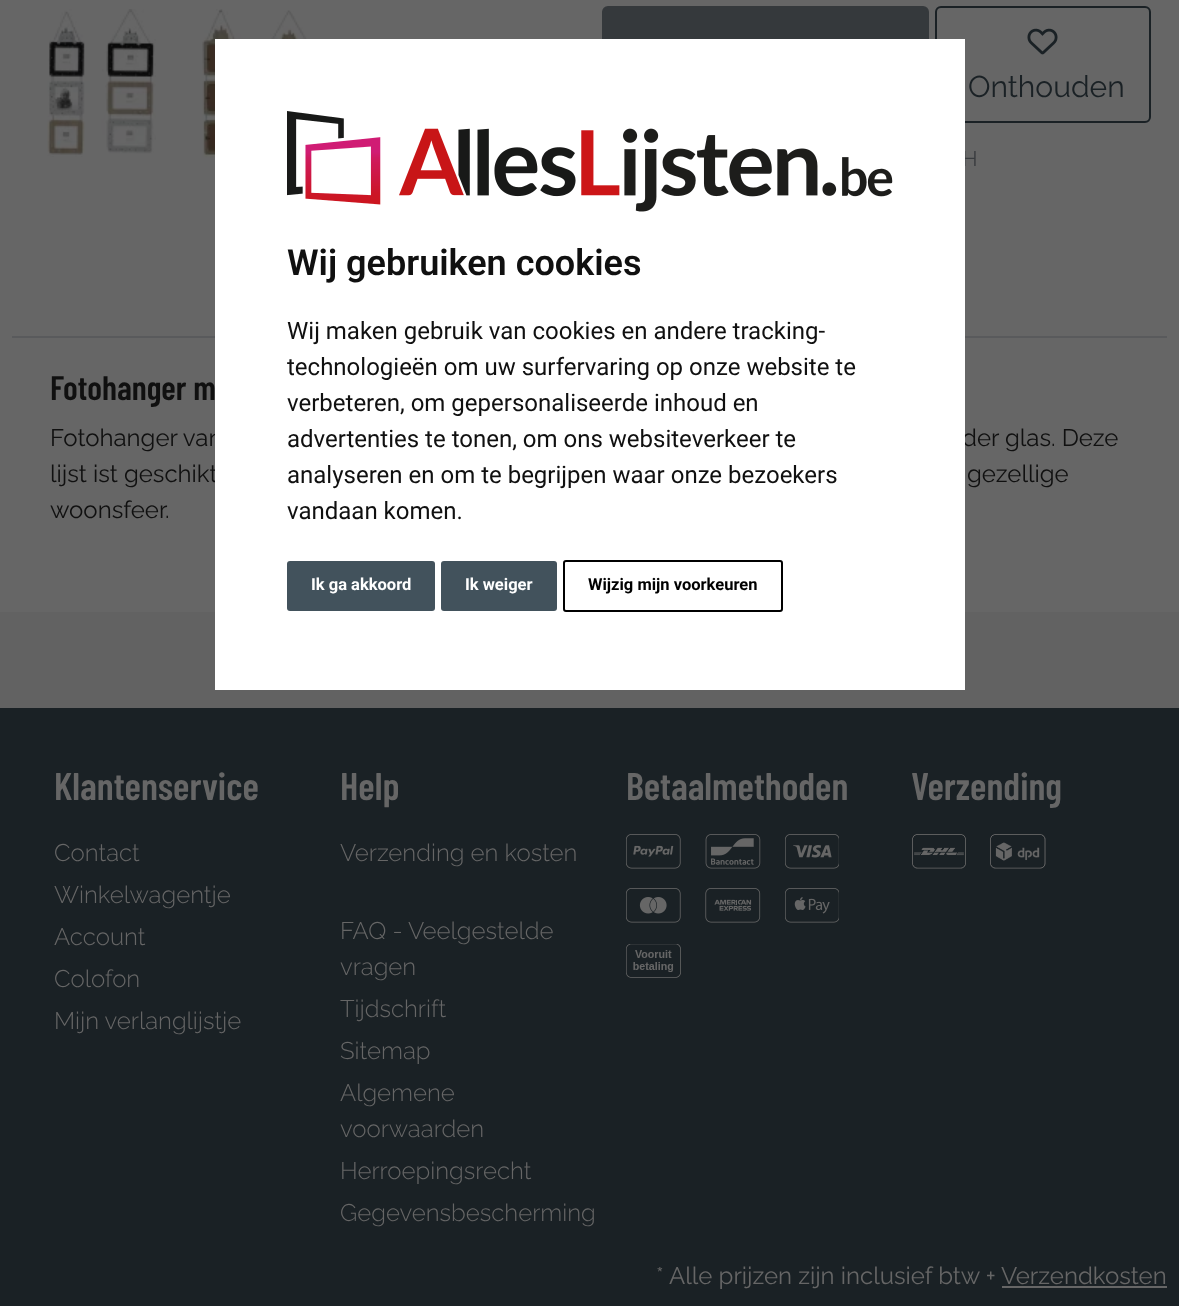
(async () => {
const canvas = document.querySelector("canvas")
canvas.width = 1179
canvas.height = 1306
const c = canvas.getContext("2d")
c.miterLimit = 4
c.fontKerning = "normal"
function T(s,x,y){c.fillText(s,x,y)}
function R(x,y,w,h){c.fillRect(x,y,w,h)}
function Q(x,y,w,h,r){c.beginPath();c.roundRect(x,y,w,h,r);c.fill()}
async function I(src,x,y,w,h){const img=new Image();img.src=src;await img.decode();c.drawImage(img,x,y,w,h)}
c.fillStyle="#666"
R(0,0,1179,1306)
await I("1.png",47,9,109,148)
await I("2.png",202,9,112,149)
c.fillStyle="#35393c"
c.beginPath()
c.roundRect(603,7,325,115,5)
c.fill()
c.strokeStyle="#35393c"
c.lineWidth=2
c.stroke()
c.beginPath()
c.roundRect(936,7,214,115,5)
c.strokeStyle="#1a2125"
c.stroke()
await I("3.png",1027,28,31,27)
c.font="30px Raleway"
c.fillStyle="#1a2125"
T("Onthouden",968,97)
c.font="21px Raleway"
c.fillStyle="#393c3f"
T("H",962,166)
c.fillStyle="#595a5c"
R(12,336,1155,2)
c.font="600 34px Barlow Condensed"
c.fillStyle="#101010"
T("Fotohanger m",50,400)
c.font="24px Raleway"
T("Fotohanger van",50,446)
T("der glas. Deze",962,446)
T("lijst ist geschikt",50,482)
T("gezellige",967,482)
T("woonsfeer.",50,518)
c.fillStyle="#626262"
R(0,612,1179,96)
c.fillStyle="#fff"
R(215,39,750,651)
await I("4.png",287,111,606,101)
c.font="600 36px Roboto"
c.fillStyle="#101010"
T("Wij gebruiken cookies",287,275)
c.font="24px Roboto"
T("Wij maken gebruik van cookies en andere tracking-",287,339)
T("technologieën om uw surfervaring op onze website te",287,375)
T("verbeteren, om gepersonaliseerde inhoud en",287,411)
T("advertenties te tonen, om ons websiteverkeer te",287,447)
T("analyseren en om te begrijpen waar onze bezoekers",287,483)
T("vandaan komen.",287,519)
c.fillStyle="#42525c"
Q(287,561,148,50,3)
c.font="bold 16.5px Roboto"
c.fillStyle="#fff"
T("Ik ga akkoord",311,590)
c.fillStyle="#42525c"
Q(441,561,116,50,3)
c.fillStyle="#fff"
T("Ik weiger",465,590)
c.beginPath()
c.roundRect(564,561,218,50,2)
c.strokeStyle="#000"
c.stroke()
c.fillStyle="#000"
T("Wijzig mijn voorkeuren",588,590)
c.fillStyle="#1a2125"
R(0,708,1179,598)
c.font="600 38.5px Barlow Condensed"
c.fillStyle="#666"
T("Klantenservice",54,800)
c.font="300 24px Raleway"
T("Contact",54,861)
T("Winkelwagentje",54,903)
T("Account",54,945)
T("Colofon",54,987)
T("Mijn verlanglijstje",54,1029)
c.font="600 38.5px Barlow Condensed"
T("Help",340,800)
c.font="300 24px Raleway"
T("Verzending en kosten",340,861)
T("FAQ - Veelgestelde",340,939)
T("vragen",340,975)
T("Tijdschrift",340,1017)
T("Sitemap",340,1059)
T("Algemene",340,1101)
T("voorwaarden",340,1137)
T("Herroepingsrecht",340,1179)
T("Gegevensbescherming",340,1221)
c.font="600 38.5px Barlow Condensed"
T("Betaalmethoden",626,800)
await I("5.png",626,834,55,35)
await I("6.png",705,834,56,35)
await I("7.png",785,834,54,35)
await I("8.png",626,888,55,35)
await I("9.png",705,888,56,35)
await I("10.png",785,888,54,35)
await I("11.png",626,944,55,34)
T("Verzending",911,800)
await I("12.png",912,834,54,35)
await I("13.png",990,834,56,35)
c.font="24px Raleway"
T("* Alle prijzen zijn inclusief btw + Verzendkosten",656,1284)
R(1002,1286,165,2)
})()
